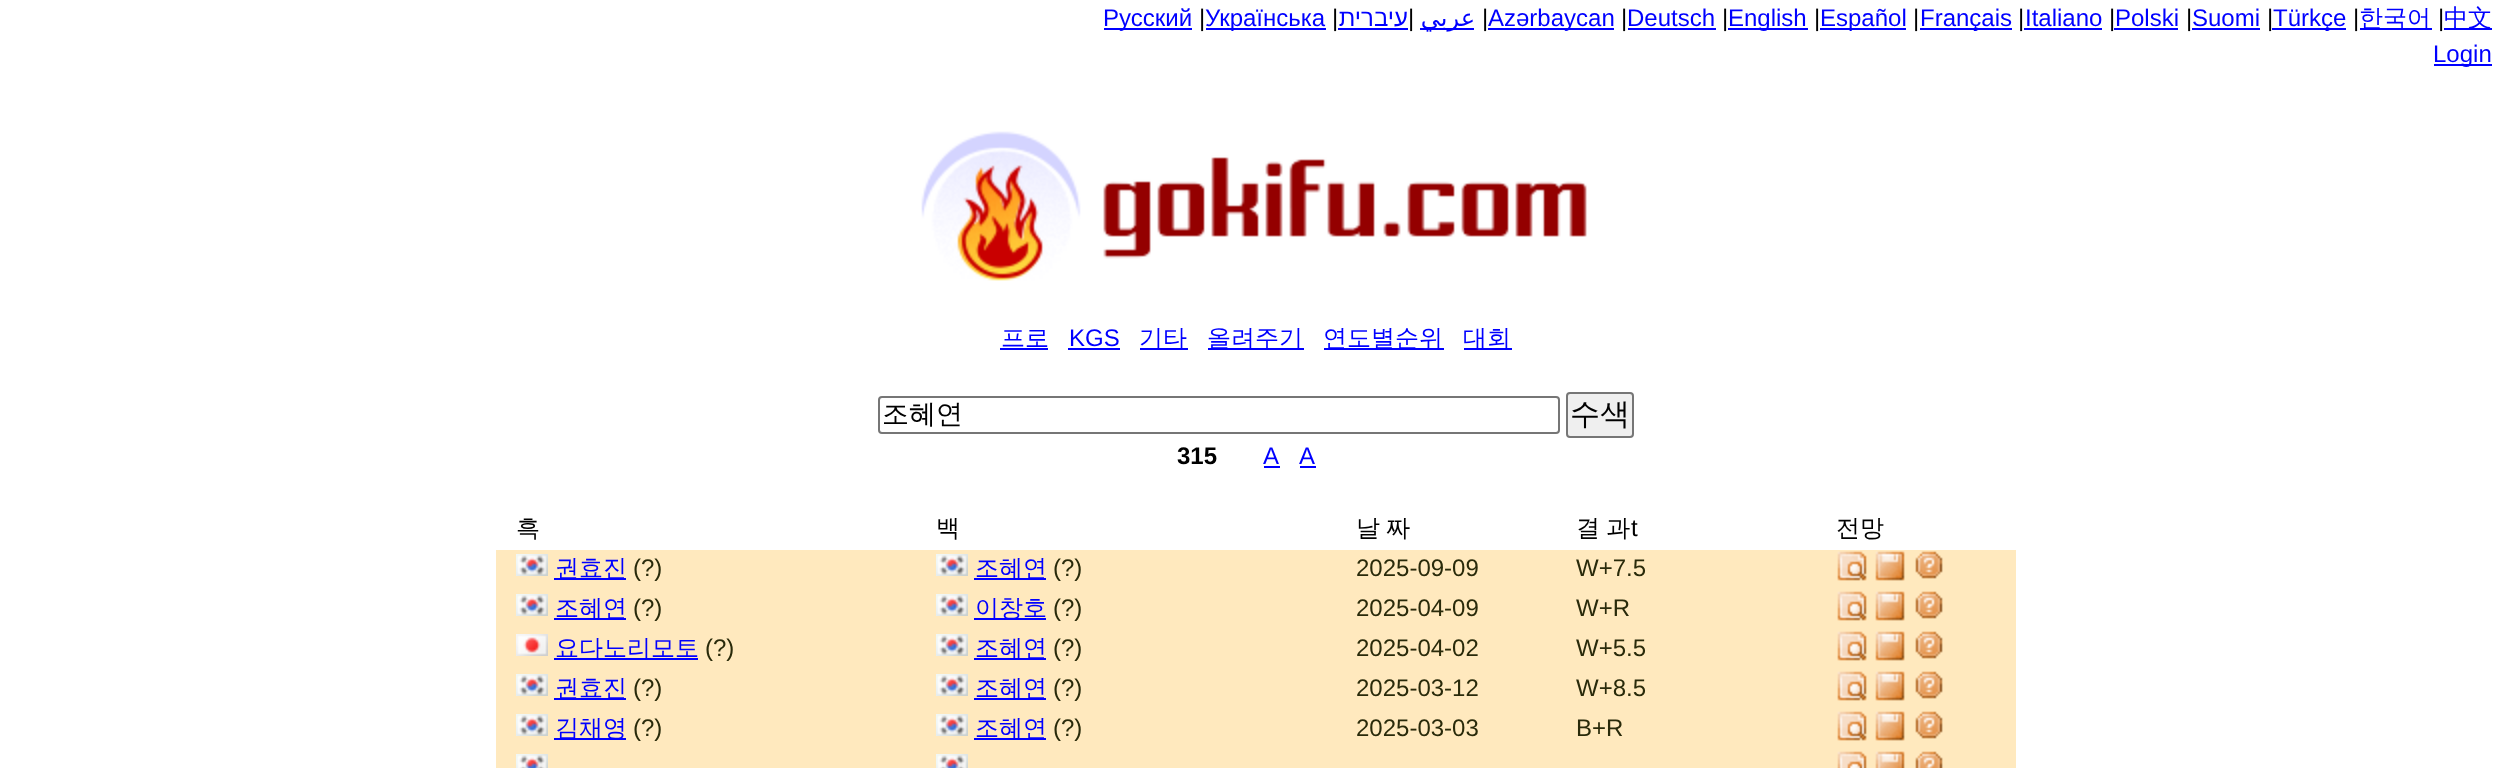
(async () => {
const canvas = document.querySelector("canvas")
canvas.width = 2511
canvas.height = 768
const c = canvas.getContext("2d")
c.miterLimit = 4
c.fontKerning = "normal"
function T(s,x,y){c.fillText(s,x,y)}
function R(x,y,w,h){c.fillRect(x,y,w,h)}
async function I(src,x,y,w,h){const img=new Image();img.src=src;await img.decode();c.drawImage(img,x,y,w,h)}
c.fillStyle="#fff"
R(0,0,2511,768)
c.fillStyle="#00f"
R(1104,28,88,2)
c.font="24px Liberation Sans"
T("Русский",1103,26)
c.fillStyle="#000"
T("|",1199,26)
c.fillStyle="#00f"
R(1206,28,120,2)
T("Українська",1205,26)
c.fillStyle="#000"
T("|",1332,26)
c.direction="rtl"
c.fillStyle="#00f"
T("עיברית",1408,26)
R(1338,28,70,2)
c.direction="ltr"
c.fillStyle="#000"
T("|",1408,26)
c.fillStyle="#00f"
R(1420,28,54,2)
c.direction="rtl"
c.font="24px DejaVu Sans"
T("عربي",1475,26)
c.direction="ltr"
c.font="24px Liberation Sans"
c.fillStyle="#000"
T("|",1482,26)
c.fillStyle="#00f"
R(1488,28,126,2)
T("Azərbaycan",1488,26)
c.fillStyle="#000"
T("|",1621,26)
c.fillStyle="#00f"
T("Deutsch",1627,26)
R(1628,28,88,2)
c.fillStyle="#000"
T("|",1722,26)
c.fillStyle="#00f"
R(1728,28,80,2)
T("English",1728,26)
c.fillStyle="#000"
T("|",1814,26)
c.fillStyle="#00f"
R(1820,28,86,2)
T("Español",1820,26)
c.fillStyle="#000"
T("|",1913,26)
c.fillStyle="#00f"
R(1920,28,92,2)
T("Français",1920,26)
c.fillStyle="#000"
T("|",2018,26)
c.fillStyle="#00f"
T("Italiano",2025,26)
R(2024,28,78,2)
c.fillStyle="#000"
T("|",2109,26)
c.fillStyle="#00f"
T("Polski",2115,26)
R(2114,28,64,2)
c.fillStyle="#000"
T("|",2186,26)
c.fillStyle="#00f"
T("Suomi",2192,26)
R(2192,28,68,2)
c.fillStyle="#000"
T("|",2267,26)
c.fillStyle="#00f"
R(2272,28,74,2)
T("Türkçe",2273,26)
c.fillStyle="#000"
T("|",2353,26)
c.fillStyle="#00f"
R(2360,28,72,2)
c.font="500 24px WenQuanYi Zen Hei"
T("한국어",2359,26)
c.font="24px Liberation Sans"
c.fillStyle="#000"
T("|",2438,26)
c.fillStyle="#00f"
R(2444,28,48,2)
c.font="500 24px WenQuanYi Zen Hei"
T("中文",2444,26)
R(2434,64,58,2)
c.font="24px Liberation Sans"
T("Login",2433,62)
await I("1.png",921,131,666,150)
c.font="500 24px WenQuanYi Zen Hei"
T("프로",1001,346)
R(1000,348,48,2)
c.font="24px Liberation Sans"
T("KGS",1069,346)
R(1068,348,52,2)
R(1140,348,48,2)
c.font="500 24px WenQuanYi Zen Hei"
T("기타",1139,346)
R(1208,348,96,2)
T("올려주기",1207,346)
R(1324,348,120,2)
T("연도별순위",1323,346)
R(1464,348,48,2)
T("대회",1463,346)
c.beginPath()
c.roundRect(879,397,680,36,3)
c.strokeStyle="#767676"
c.lineWidth=2
c.stroke()
c.font="500 27px WenQuanYi Zen Hei"
c.fillStyle="#000"
T("조혜연",882,423)
c.fillStyle="#efefef"
c.beginPath()
c.roundRect(1567,393,66,44,3)
c.fill()
c.stroke()
c.font="500 30px WenQuanYi Zen Hei"
c.fillStyle="#000"
T("수색",1570,424)
c.font="bold 24px Liberation Sans"
T("315",1177,464)
c.font="24px Liberation Sans"
c.fillStyle="#00f"
T("A",1263,464)
R(1264,466,16,2)
T("A",1299,464)
R(1300,466,16,2)
c.font="500 24px WenQuanYi Zen Hei"
c.fillStyle="#000"
T("흑",516,536)
T("백",936,536)
c.wordSpacing="-1px"
T("날 짜",1356,536)
T("결 과",1576,536)
c.wordSpacing="0px"
c.font="24px Liberation Sans"
T("t",1631,536)
c.font="500 24px WenQuanYi Zen Hei"
T("전망",1836,536)
c.fillStyle="#ffe9be"
R(496,550,1520,218)
await I("2.png",516,554,32,22)
c.fillStyle="#00f"
R(554,578,72,2)
T("권효진",555,576)
c.font="24px Liberation Sans"
c.fillStyle="#292a0a"
T("(?)",633,576)
await I("2.png",936,554,32,22)
c.fillStyle="#00f"
R(974,578,72,2)
c.font="500 24px WenQuanYi Zen Hei"
T("조혜연",975,576)
c.font="24px Liberation Sans"
c.fillStyle="#292a0a"
T("(?)",1053,576)
T("2025-09-09",1356,576)
T("W+7.5",1576,576)
await I("3.png",1837,551,30,30)
await I("4.png",1875,551,30,30)
await I("5.png",1915,551,28,28)
await I("2.png",516,594,32,22)
c.fillStyle="#00f"
R(554,618,72,2)
c.font="500 24px WenQuanYi Zen Hei"
T("조혜연",555,616)
c.font="24px Liberation Sans"
c.fillStyle="#292a0a"
T("(?)",633,616)
await I("2.png",936,594,32,22)
c.fillStyle="#00f"
R(974,618,72,2)
c.font="500 24px WenQuanYi Zen Hei"
T("이창호",975,616)
c.font="24px Liberation Sans"
c.fillStyle="#292a0a"
T("(?)",1053,616)
T("2025-04-09",1356,616)
T("W+R",1576,616)
await I("3.png",1837,591,30,30)
await I("4.png",1875,591,30,30)
await I("5.png",1915,591,28,28)
await I("6.png",516,634,32,22)
c.fillStyle="#00f"
R(554,658,144,2)
c.font="500 24px WenQuanYi Zen Hei"
T("요다노리모토",555,656)
c.font="24px Liberation Sans"
c.fillStyle="#292a0a"
T("(?)",705,656)
await I("2.png",936,634,32,22)
c.fillStyle="#00f"
R(974,658,72,2)
c.font="500 24px WenQuanYi Zen Hei"
T("조혜연",975,656)
c.font="24px Liberation Sans"
c.fillStyle="#292a0a"
T("(?)",1053,656)
T("2025-04-02",1356,656)
T("W+5.5",1576,656)
await I("3.png",1837,631,30,30)
await I("4.png",1875,631,30,30)
await I("5.png",1915,631,28,28)
await I("2.png",516,674,32,22)
c.fillStyle="#00f"
R(554,698,72,2)
c.font="500 24px WenQuanYi Zen Hei"
T("권효진",555,696)
c.font="24px Liberation Sans"
c.fillStyle="#292a0a"
T("(?)",633,696)
await I("2.png",936,674,32,22)
c.fillStyle="#00f"
R(974,698,72,2)
c.font="500 24px WenQuanYi Zen Hei"
T("조혜연",975,696)
c.font="24px Liberation Sans"
c.fillStyle="#292a0a"
T("(?)",1053,696)
T("2025-03-12",1356,696)
T("W+8.5",1576,696)
await I("3.png",1837,671,30,30)
await I("4.png",1875,671,30,30)
await I("5.png",1915,671,28,28)
await I("2.png",516,714,32,22)
c.fillStyle="#00f"
R(554,738,72,2)
c.font="500 24px WenQuanYi Zen Hei"
T("김채영",555,736)
c.font="24px Liberation Sans"
c.fillStyle="#292a0a"
T("(?)",633,736)
await I("2.png",936,714,32,22)
c.fillStyle="#00f"
R(974,738,72,2)
c.font="500 24px WenQuanYi Zen Hei"
T("조혜연",975,736)
c.font="24px Liberation Sans"
c.fillStyle="#292a0a"
T("(?)",1053,736)
T("2025-03-03",1356,736)
T("B+R",1576,736)
await I("3.png",1837,711,30,30)
await I("4.png",1875,711,30,30)
await I("5.png",1915,711,28,28)
await I("7.png",516,754,32,14)
await I("7.png",936,754,32,14)
await I("8.png",1837,751,30,17)
await I("9.png",1875,751,30,17)
await I("10.png",1915,751,28,17)
})()
